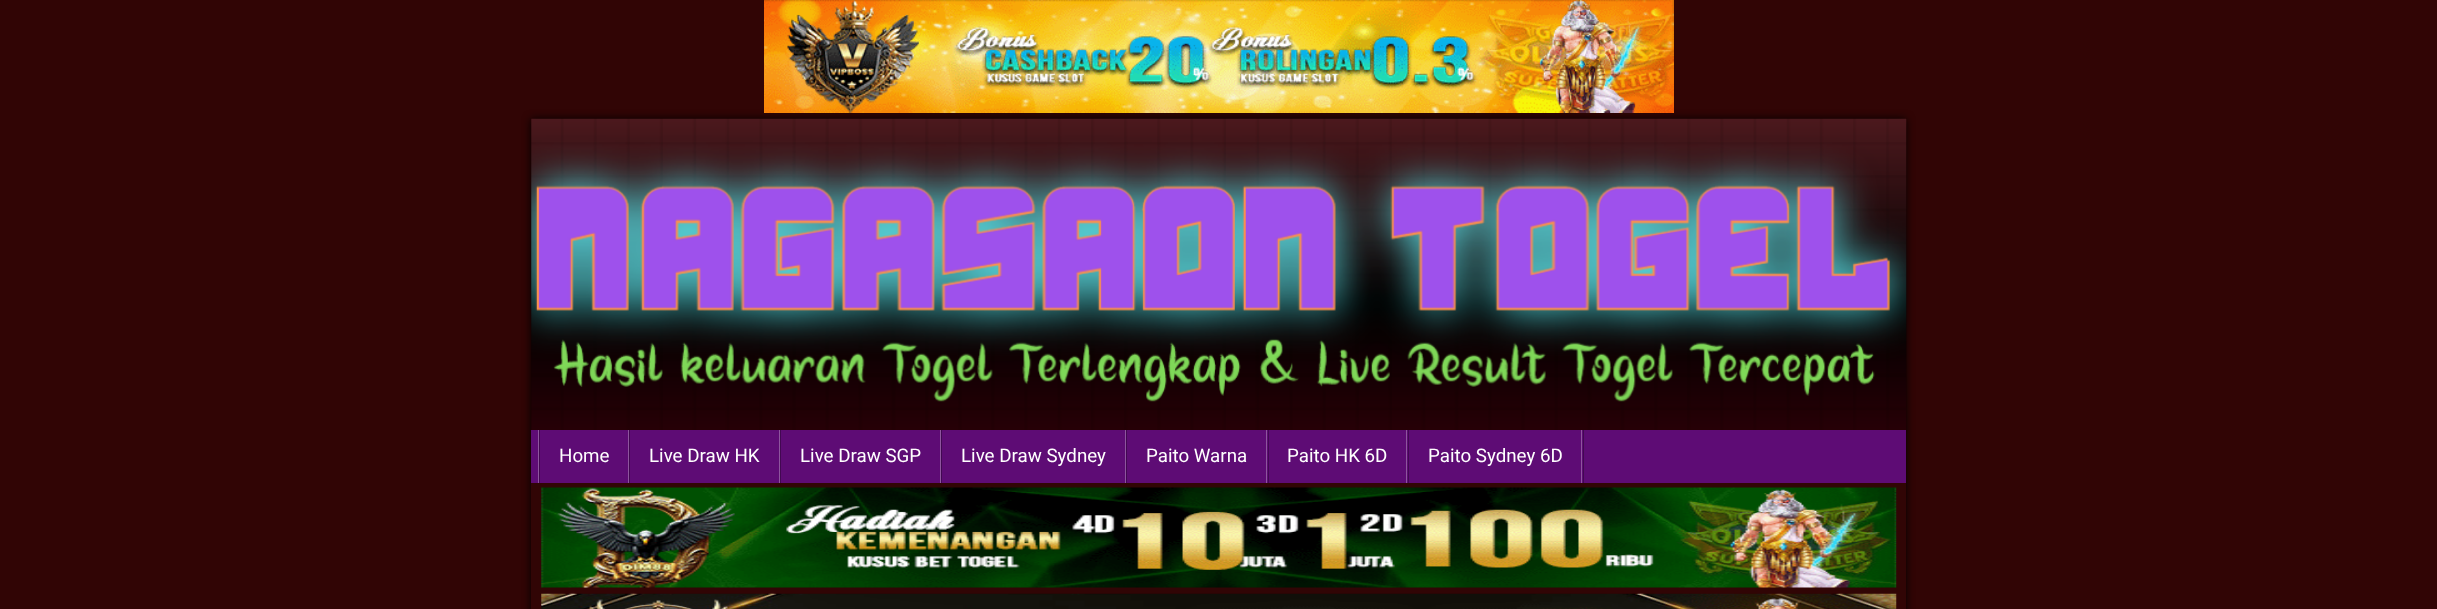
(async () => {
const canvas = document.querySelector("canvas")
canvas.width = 2437
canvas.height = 609
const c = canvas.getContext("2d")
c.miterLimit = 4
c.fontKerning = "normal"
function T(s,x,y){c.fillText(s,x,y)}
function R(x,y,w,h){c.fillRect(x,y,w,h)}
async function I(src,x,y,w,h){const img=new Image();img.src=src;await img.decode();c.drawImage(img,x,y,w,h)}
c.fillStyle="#310505"
R(0,0,2437,609)
c.fillStyle="#000"
c.filter="blur(4px)"
c.beginPath()
c.rect(531,119,1375,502)
c.fill()
c.filter="none"
await I("1.png",764,0,910,113)
await I("2.png",531,118,1376,312)
c.fillStyle="#5e0c75"
R(531,430,1375,53)
c.fillStyle="#420852"
R(1583,430,1,53)
c.fillStyle="#8e559e"
R(538,430,1,53)
R(628,430,1,53)
c.fillStyle="#420852"
R(539,430,1,53)
c.font="18.75px Roboto"
c.fillStyle="#fff"
T("Home",559,462)
c.fillStyle="#8e559e"
R(779,430,1,53)
c.fillStyle="#420852"
R(629,430,1,53)
c.fillStyle="#fff"
T("Live Draw HK",649,462)
c.fillStyle="#8e559e"
R(940,430,1,53)
c.fillStyle="#420852"
R(780,430,1,53)
c.fillStyle="#fff"
T("Live Draw SGP",800,462)
c.fillStyle="#8e559e"
R(1125,430,1,53)
c.fillStyle="#420852"
R(941,430,1,53)
c.fillStyle="#fff"
T("Live Draw Sydney",961,462)
c.fillStyle="#8e559e"
R(1266,430,1,53)
c.fillStyle="#420852"
R(1126,430,1,53)
c.fillStyle="#fff"
T("Paito Warna",1146,462)
c.fillStyle="#8e559e"
R(1406,430,1,53)
c.fillStyle="#420852"
R(1268,430,1,53)
c.fillStyle="#fff"
T("Paito HK 6D",1287,462)
c.fillStyle="#8e559e"
R(1581,430,1,53)
c.fillStyle="#420852"
R(1408,430,1,53)
c.fillStyle="#fff"
T("Paito Sydney 6D",1428,462)
c.fillStyle="#310505"
R(531,483,1375,126)
await I("3.png",541,487,1356,101)
await I("4.png",541,593,1356,16)
})()
